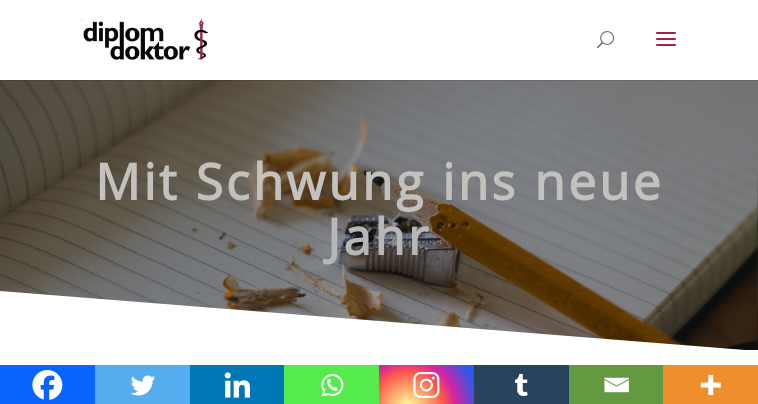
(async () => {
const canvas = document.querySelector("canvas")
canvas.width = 758
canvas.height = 404
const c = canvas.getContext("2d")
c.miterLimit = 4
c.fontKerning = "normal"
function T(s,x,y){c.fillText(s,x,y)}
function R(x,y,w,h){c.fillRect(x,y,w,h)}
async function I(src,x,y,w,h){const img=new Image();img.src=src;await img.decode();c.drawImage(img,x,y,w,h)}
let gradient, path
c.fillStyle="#fff"
R(0,0,758,404)
await I("4.png",0,80,758,270)
c.fillStyle="#0000001a"
R(0,80,758,1)
await I("1.png",80,18,129,44)
await I("2.png",597,31,17,18)
await I("3.png",656,32,20,14)
c.letterSpacing="3px"
c.font="bold 50px Open Sans"
c.fillStyle="#c3c1bd"
T("Mit Schwung ins neue",95,200)
c.fillStyle="#b8b7b8"
T("Jahr",327,255)
c.fillStyle="#fff"
path = new Path2D("M0 291v60h758z")
c.fill(path)
c.fillStyle="#0765fe"
R(0,365,95,39)
await I("5.png",32,370,31,30)
c.fillStyle="#55acee"
R(95,365,95,39)
await I("6.png",130,375,25,21)
c.fillStyle="#0077b5"
R(190,365,94,39)
await I("7.png",224,372,26,26)
c.fillStyle="#55eb4c"
R(284,365,95,39)
await I("8.png",321,374,23,23)
gradient = c.createRadialGradient(408,408,0,408,408,79)
gradient.addColorStop(0,"#fdf497")
gradient.addColorStop(.05,"#fdf497")
gradient.addColorStop(.45,"#fd5949")
gradient.addColorStop(.6,"#d6249f")
gradient.addColorStop(.9,"#285aeb")
c.fillStyle = gradient
R(379,365,95,39)
await I("9.png",413,372,27,26)
c.fillStyle="#29435d"
R(474,365,95,39)
await I("10.png",515,373,13,24)
c.fillStyle="#649a3f"
R(569,365,94,39)
await I("11.png",604,377,25,16)
c.fillStyle="#ee8e2d"
R(663,365,95,39)
await I("12.png",700,375,21,20)
})()
